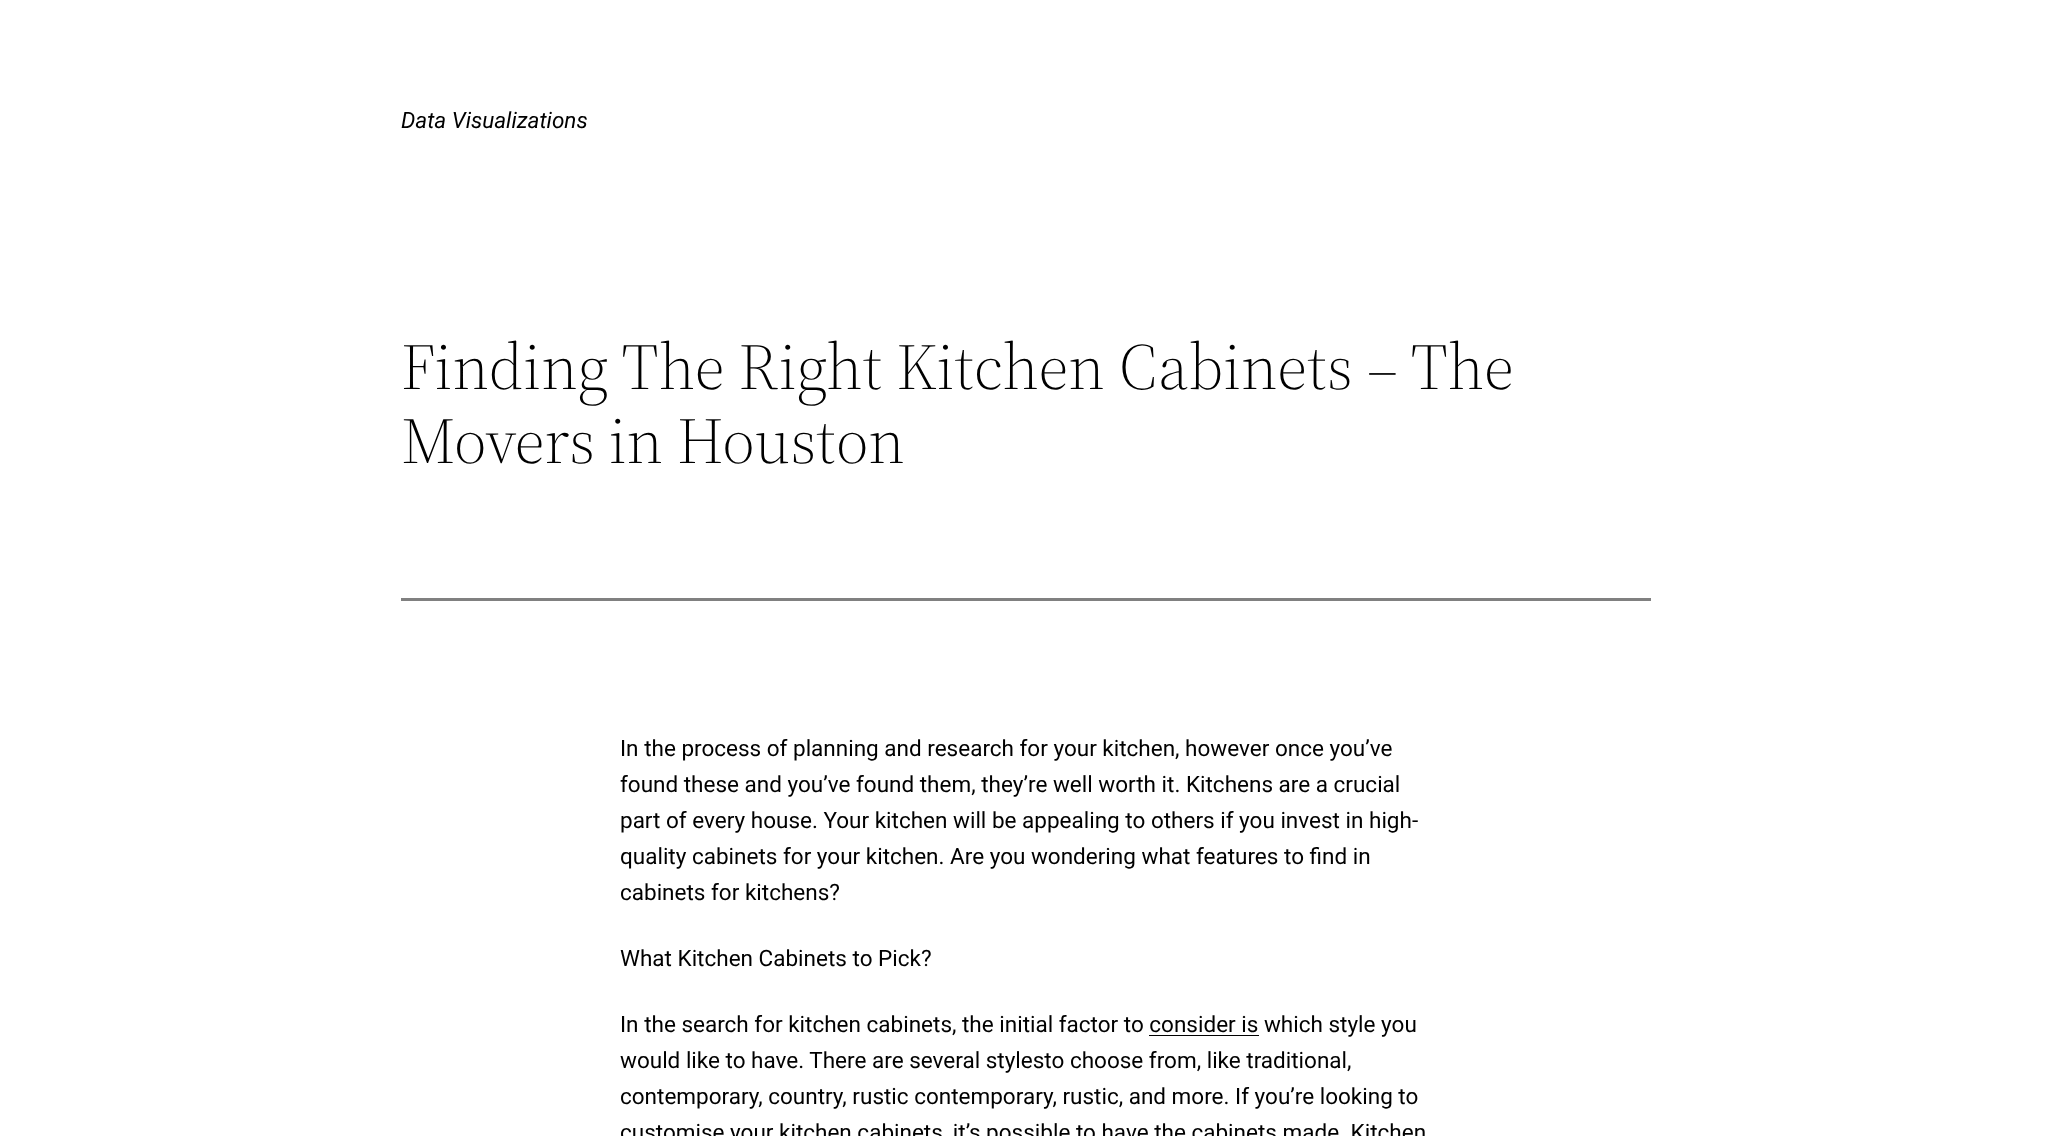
(async () => {
const canvas = document.querySelector("canvas")
canvas.width = 2052
canvas.height = 1136
const c = canvas.getContext("2d")
c.miterLimit = 4
c.fontKerning = "normal"
function T(s,x,y){c.fillText(s,x,y)}
function R(x,y,w,h){c.fillRect(x,y,w,h)}
c.fillStyle="#fff"
R(0,0,2052,1136)
c.font="italic 22.5px Roboto"
c.fillStyle="#000"
T("Data Visualizations",401,128)
c.font="300 65px 'Source Serif 4'"
T("Finding The Right Kitchen Cabinets – The",401,389)
T("Movers in Houston",401,463)
c.fillStyle="#808080"
R(401,598,1250,3)
c.font="22.5px Roboto"
c.fillStyle="#000"
T("In the process of planning and research for your kitchen, however once you’ve",620,756)
T("found these and you’ve found them, they’re well worth it. Kitchens are a crucial",620,792)
T("part of every house. Your kitchen will be appealing to others if you invest in high-",620,828)
T("quality cabinets for your kitchen. Are you wondering what features to find in",620,864)
T("cabinets for kitchens?",620,900)
T("What Kitchen Cabinets to Pick?",620,966)
T("In the search for kitchen cabinets, the initial factor to consider is which style you",620,1032)
R(1149,1035,110,1)
T("would like to have. There are several stylesto choose from, like traditional,",620,1068)
T("contemporary, country, rustic contemporary, rustic, and more. If you’re looking to",620,1104)
T("customise your kitchen cabinets, it’s possible to have the cabinets made. Kitchen",620,1140)
})()
